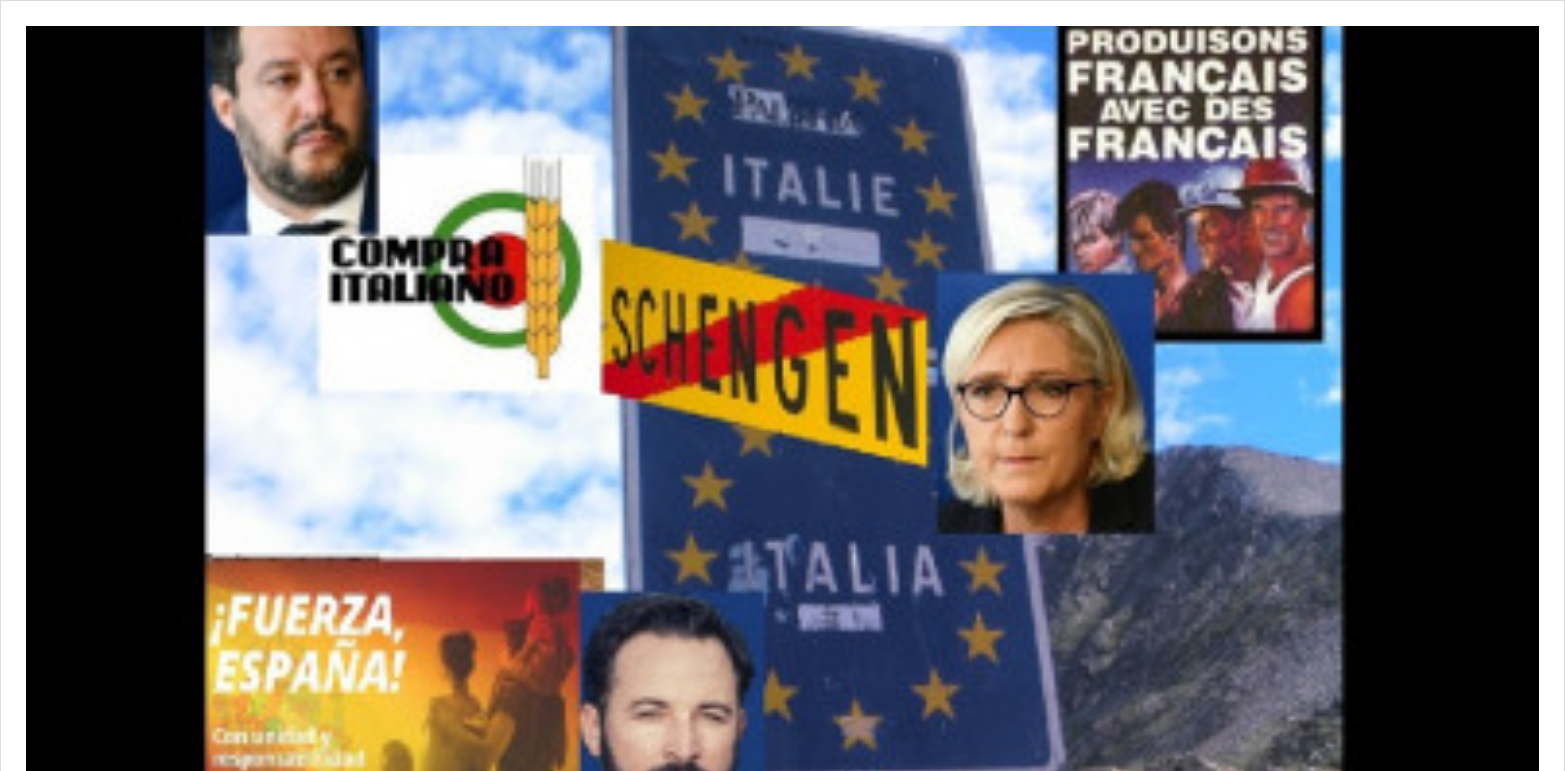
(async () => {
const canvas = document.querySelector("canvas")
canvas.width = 1565
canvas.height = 771
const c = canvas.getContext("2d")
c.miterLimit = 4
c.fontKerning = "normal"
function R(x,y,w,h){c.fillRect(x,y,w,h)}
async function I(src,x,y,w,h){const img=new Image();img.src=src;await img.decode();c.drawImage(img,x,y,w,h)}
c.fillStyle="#fff"
R(0,0,1565,771)
c.strokeStyle="#dcdcde"
c.strokeRect(.5,.5,1564,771)
await I("1.png",26,26,1513,745)
})()
